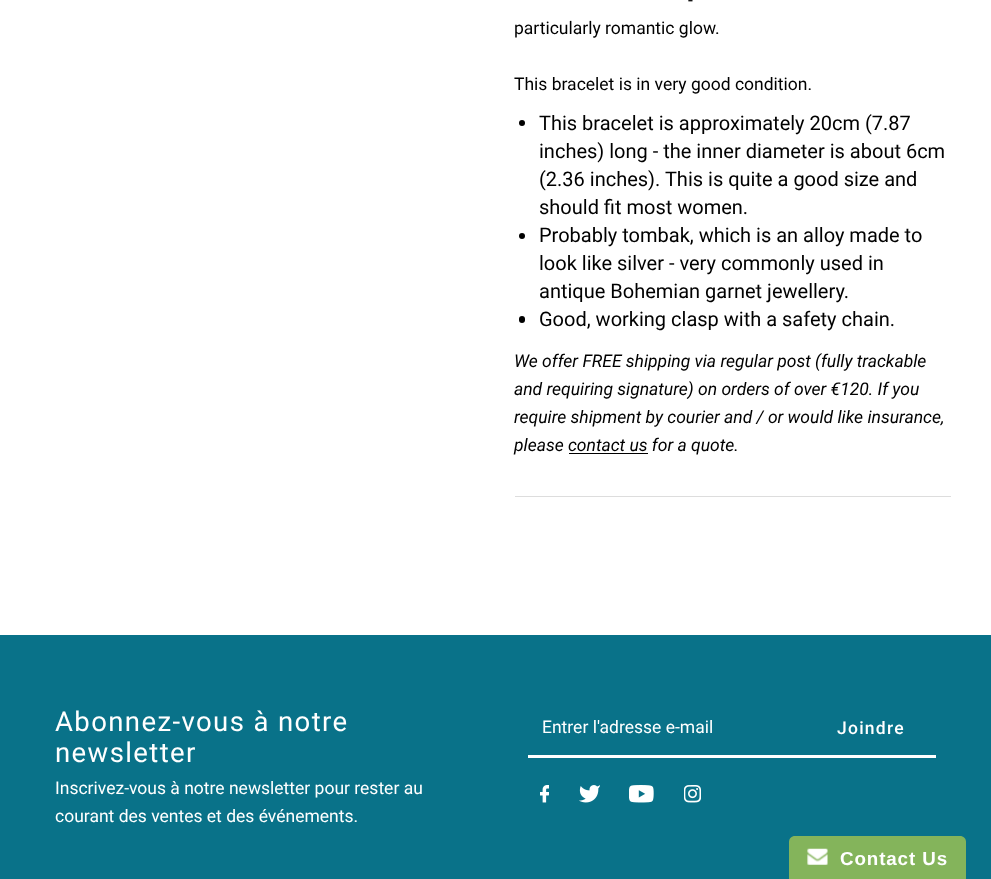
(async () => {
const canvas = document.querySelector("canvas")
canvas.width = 991
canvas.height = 879
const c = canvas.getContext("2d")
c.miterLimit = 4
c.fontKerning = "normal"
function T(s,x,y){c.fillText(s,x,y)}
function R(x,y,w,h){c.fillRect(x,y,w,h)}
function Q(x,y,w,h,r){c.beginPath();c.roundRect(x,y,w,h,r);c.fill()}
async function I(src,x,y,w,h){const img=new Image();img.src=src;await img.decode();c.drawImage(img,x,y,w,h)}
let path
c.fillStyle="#fff"
R(0,0,991,879)
c.fillStyle="#ddd"
R(515,496,436,1)
c.font="17.5px Roboto"
c.fillStyle="#000"
T("-",688,6)
T("particularly romantic glow.",514,34)
T("This bracelet is in very good condition.",514,90)
c.beginPath()
c.arc(522,123,3,0,7)
c.fill()
c.font="20px Roboto"
T("This bracelet is approximately 20cm (7.87",539,130)
T("inches) long - the inner diameter is about 6cm",539,158)
T("(2.36 inches). This is quite a good size and",539,186)
T("should fit most women.",539,214)
c.beginPath()
c.arc(522,236,3,0,7)
c.fill()
T("Probably tombak, which is an alloy made to",539,242)
T("look like silver - very commonly used in",539,270)
T("antique Bohemian garnet jewellery.",539,298)
Q(519,316,6,7,3)
T("Good, working clasp with a safety chain.",539,326)
c.font="italic 17.5px Roboto"
T("We offer FREE shipping via regular post (fully trackable",514,367)
T("and requiring signature) on orders of over €120. If you",514,395)
T("require shipment by courier and / or would like insurance,",514,423)
T("please contact us for a quote.",514,451)
R(569,453,79,1)
c.fillStyle="#097289"
R(0,635,991,244)
c.letterSpacing="1.4px"
c.font="27.5px Roboto"
c.fillStyle="#fff"
T("Abonnez-vous à notre",55,731)
T("newsletter",55,762)
c.letterSpacing="0px"
c.font="17.5px Roboto"
T("Inscrivez-vous à notre newsletter pour rester au",55,794)
T("courant des ventes et des événements.",55,822)
R(528,755,408,3)
T("Entrer l'adresse e-mail",542,733)
c.letterSpacing="1.25px"
c.font="500 17.5px Roboto"
T("Joindre",837,734)
await I("1.png",540,785,9,18)
await I("2.png",579,785,21,18)
await I("3.png",629,785,25,18)
await I("4.png",684,785,17,18)
c.fillStyle="#84b45b"
path = new Path2D("M795 836h165c3.5 0 6 2.5 6 6v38h-177v-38c0-3.5 2.5-6 6-6z")
c.fill(path)
await I("5.png",807,848,21,17)
c.letterSpacing="0.9px"
c.font="bold 18.75px Liberation Sans"
c.fillStyle="#fff"
T("Contact Us",840,865)
})()
